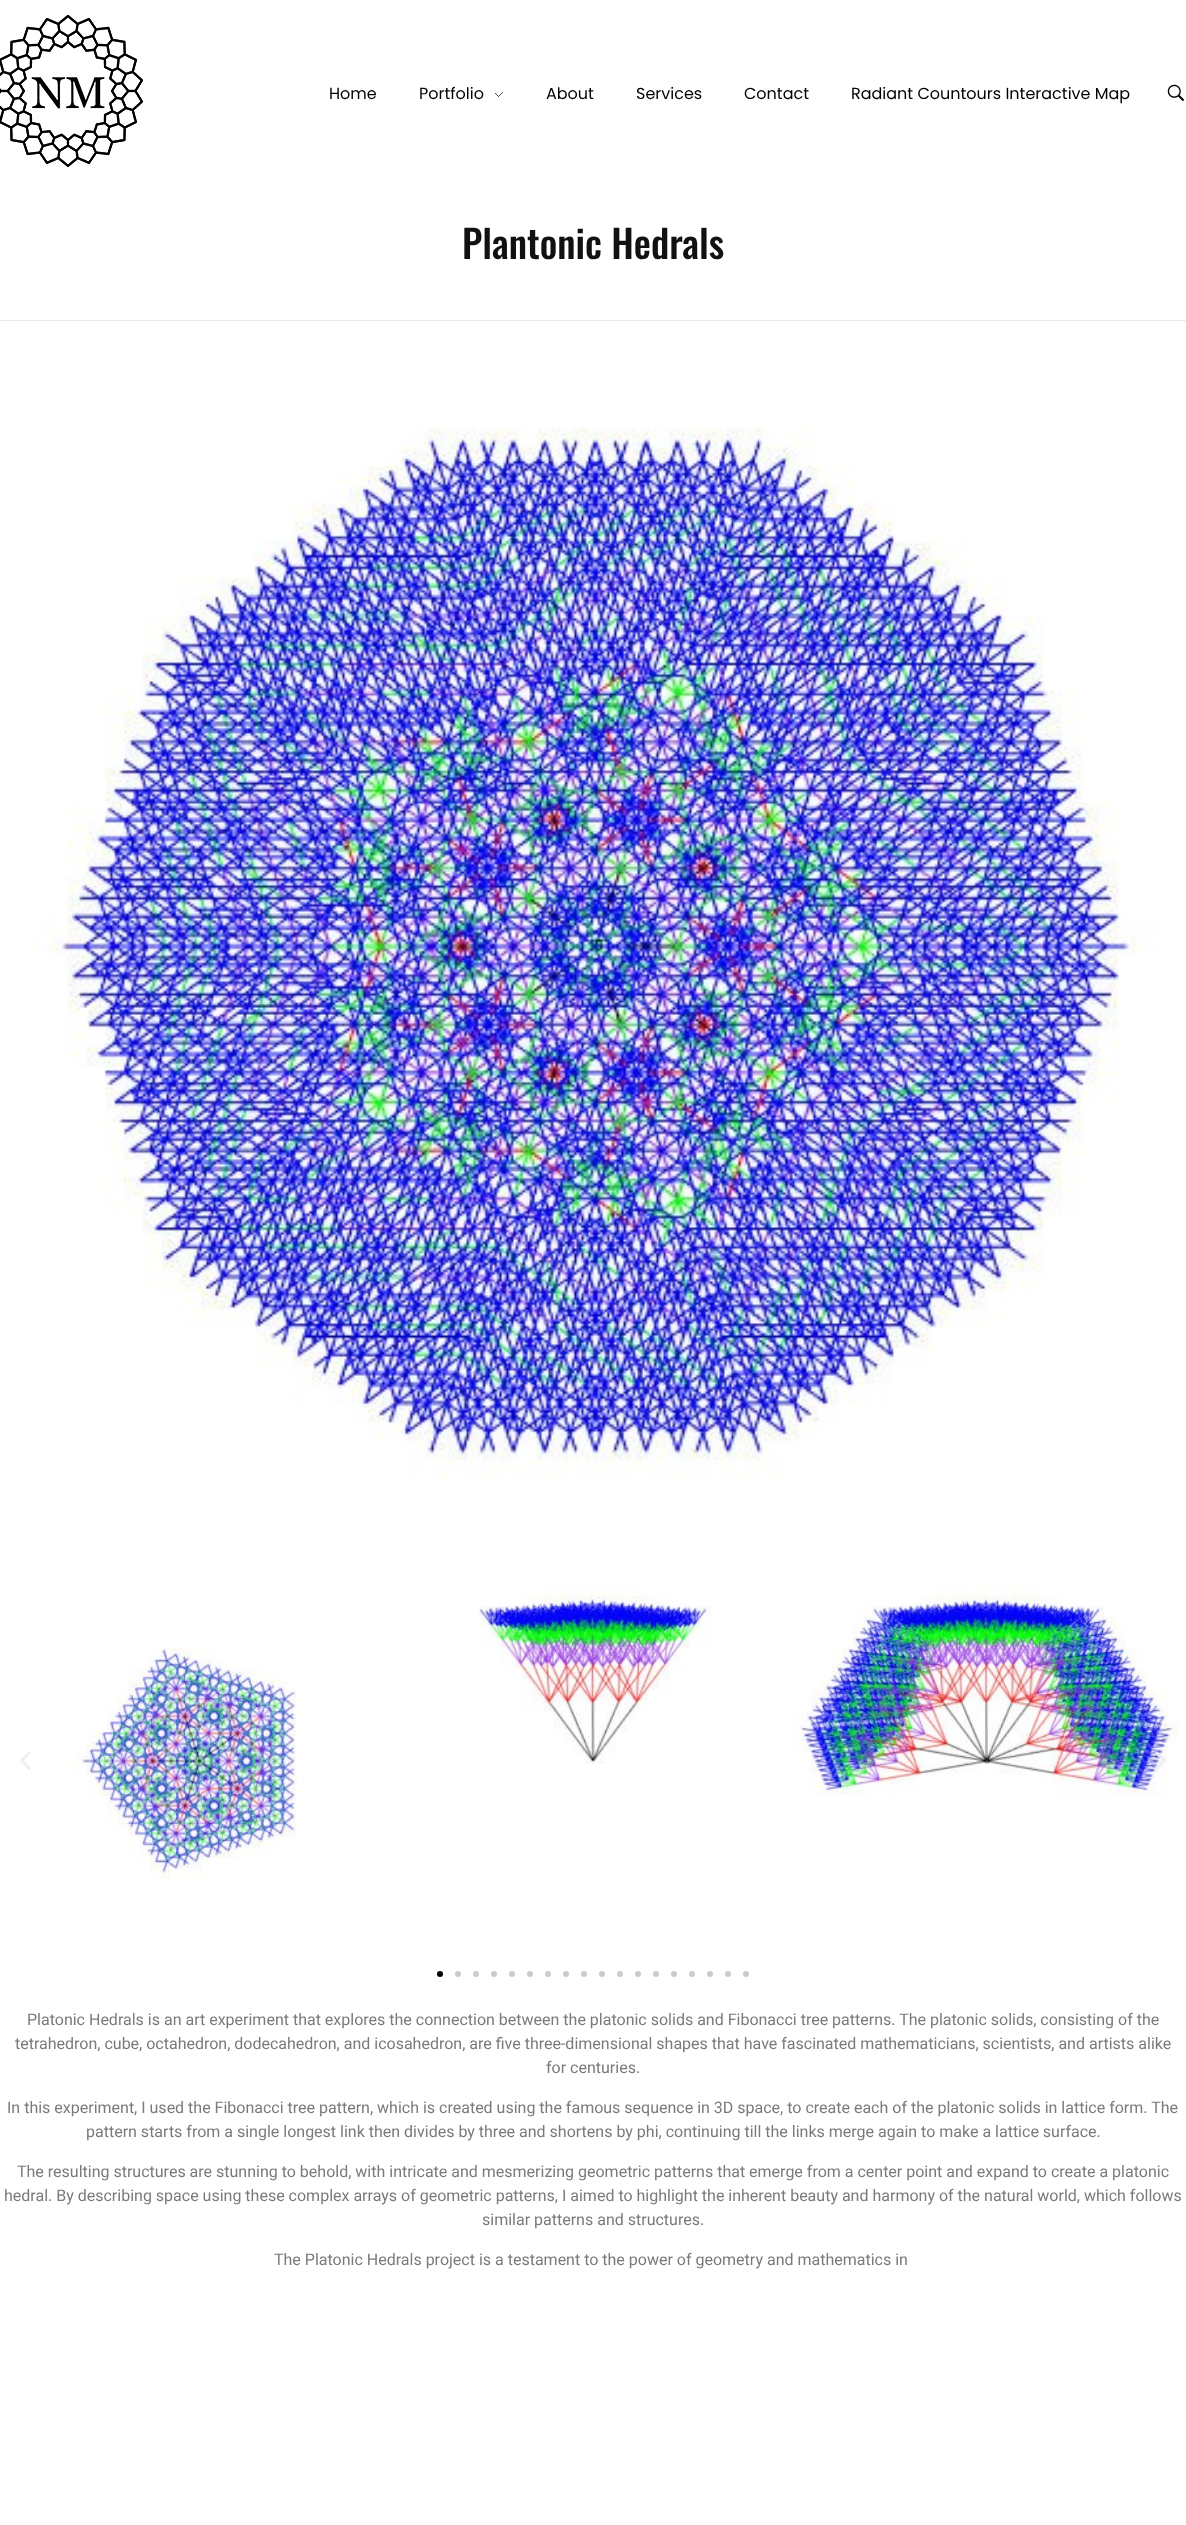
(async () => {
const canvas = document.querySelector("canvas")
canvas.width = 1186
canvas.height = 2525
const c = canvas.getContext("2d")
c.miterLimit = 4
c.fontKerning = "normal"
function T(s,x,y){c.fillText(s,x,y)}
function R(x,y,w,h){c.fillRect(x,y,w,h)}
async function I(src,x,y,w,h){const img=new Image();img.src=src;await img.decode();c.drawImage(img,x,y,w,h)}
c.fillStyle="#fff"
R(0,0,1186,2525)
await I("1.png",0,15,143,152)
c.font="16px Poppins"
c.fillStyle="#000"
T("Home",329,99)
T("Portfolio",419,99)
await I("2.png",495,92,8,5)
T("About",546,99)
T("Services",636,99)
T("Contact",744,99)
T("Radiant Countours Interactive Map",851,99)
await I("3.png",1167,84,18,18)
c.fillStyle="#eaeaea"
R(0,320,1186,1)
c.font="500 38.5px Oswald"
c.fillStyle="#111"
T("Plantonic Hedrals",462,259)
await I("4.png",30,427,1127,1052)
await I("5.png",20,1751,11,19)
await I("6.png",66,1647,231,233)
await I("7.png",479,1585,233,179)
await I("8.png",790,1585,388,211)
await I("9.png",1155,1751,11,19)
c.fillStyle="#000"
c.beginPath()
c.arc(440,1974,3,0,7)
c.fill()
c.fillStyle="#ccc"
c.beginPath()
c.arc(458,1974,3,0,7)
c.fill()
c.beginPath()
c.arc(476,1974,3,0,7)
c.fill()
c.beginPath()
c.arc(494,1974,3,0,7)
c.fill()
c.beginPath()
c.arc(512,1974,3,0,7)
c.fill()
c.beginPath()
c.arc(530,1974,3,0,7)
c.fill()
c.beginPath()
c.arc(548,1974,3,0,7)
c.fill()
c.beginPath()
c.arc(566,1974,3,0,7)
c.fill()
c.beginPath()
c.arc(584,1974,3,0,7)
c.fill()
c.beginPath()
c.arc(602,1974,3,0,7)
c.fill()
c.beginPath()
c.arc(620,1974,3,0,7)
c.fill()
c.beginPath()
c.arc(638,1974,3,0,7)
c.fill()
c.beginPath()
c.arc(656,1974,3,0,7)
c.fill()
c.beginPath()
c.arc(674,1974,3,0,7)
c.fill()
c.beginPath()
c.arc(692,1974,3,0,7)
c.fill()
c.beginPath()
c.arc(710,1974,3,0,7)
c.fill()
c.beginPath()
c.arc(728,1974,3,0,7)
c.fill()
c.beginPath()
c.arc(746,1974,3,0,7)
c.fill()
c.font="16px Roboto"
c.fillStyle="#7a7a7a"
T("Platonic Hedrals is an art experiment that explores the connection between the platonic solids and Fibonacci tree patterns. The platonic solids, consisting of the",27,2025)
T("tetrahedron, cube, octahedron, dodecahedron, and icosahedron, are five three-dimensional shapes that have fascinated mathematicians, scientists, and artists alike",15,2049)
T("for centuries.",546,2073)
T("In this experiment, I used the Fibonacci tree pattern, which is created using the famous sequence in 3D space, to create each of the platonic solids in lattice form. The",7,2113)
T("pattern starts from a single longest link then divides by three and shortens by phi, continuing till the links merge again to make a lattice surface.",86,2137)
T("The resulting structures are stunning to behold, with intricate and mesmerizing geometric patterns that emerge from a center point and expand to create a platonic",17,2177)
T("hedral. By describing space using these complex arrays of geometric patterns, I aimed to highlight the inherent beauty and harmony of the natural world, which follows",4,2201)
T("similar patterns and structures.",482,2225)
T("The Platonic Hedrals project is a testament to the power of geometry and mathematics in",274,2265)
})()
